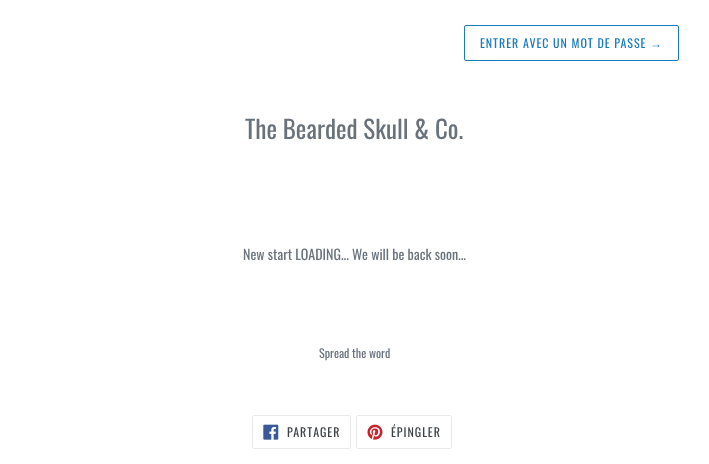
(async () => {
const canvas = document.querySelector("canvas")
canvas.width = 709
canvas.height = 464
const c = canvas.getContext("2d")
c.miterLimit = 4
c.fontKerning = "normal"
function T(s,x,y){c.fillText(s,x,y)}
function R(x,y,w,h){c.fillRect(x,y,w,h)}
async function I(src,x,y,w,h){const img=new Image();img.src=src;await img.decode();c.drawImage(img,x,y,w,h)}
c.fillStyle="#fff"
R(0,0,709,464)
c.beginPath()
c.roundRect(464.5,25.5,214,35,1.5)
c.strokeStyle="#197bbd"
c.stroke()
c.letterSpacing="0.95px"
c.font="12px Oswald"
c.fillStyle="#197bbd"
T("ENTRER AVEC UN MOT DE PASSE",480,48)
c.font="12px Liberation Sans"
T("→",650,48)
c.letterSpacing="0px"
c.font="25px Oswald"
c.fillStyle="#69727b"
T("The Bearded Skull & Co.",245,139)
c.font="14px Oswald"
T("New start LOADING... We will be back soon...",243,260)
c.font="12px Oswald"
T("Spread the word",319,358)
c.beginPath()
c.roundRect(252.5,415.5,98,33,1.5)
c.strokeStyle="#e8e9eb"
c.stroke()
await I("1.png",263,424,16,16)
c.letterSpacing="0.95px"
c.fillStyle="#3d4246"
T("PARTAGER",287,437)
c.beginPath()
c.roundRect(356.5,415.5,95,33,1.5)
c.stroke()
await I("2.png",367,424,16,16)
T("ÉPINGLER",391,437)
})()
